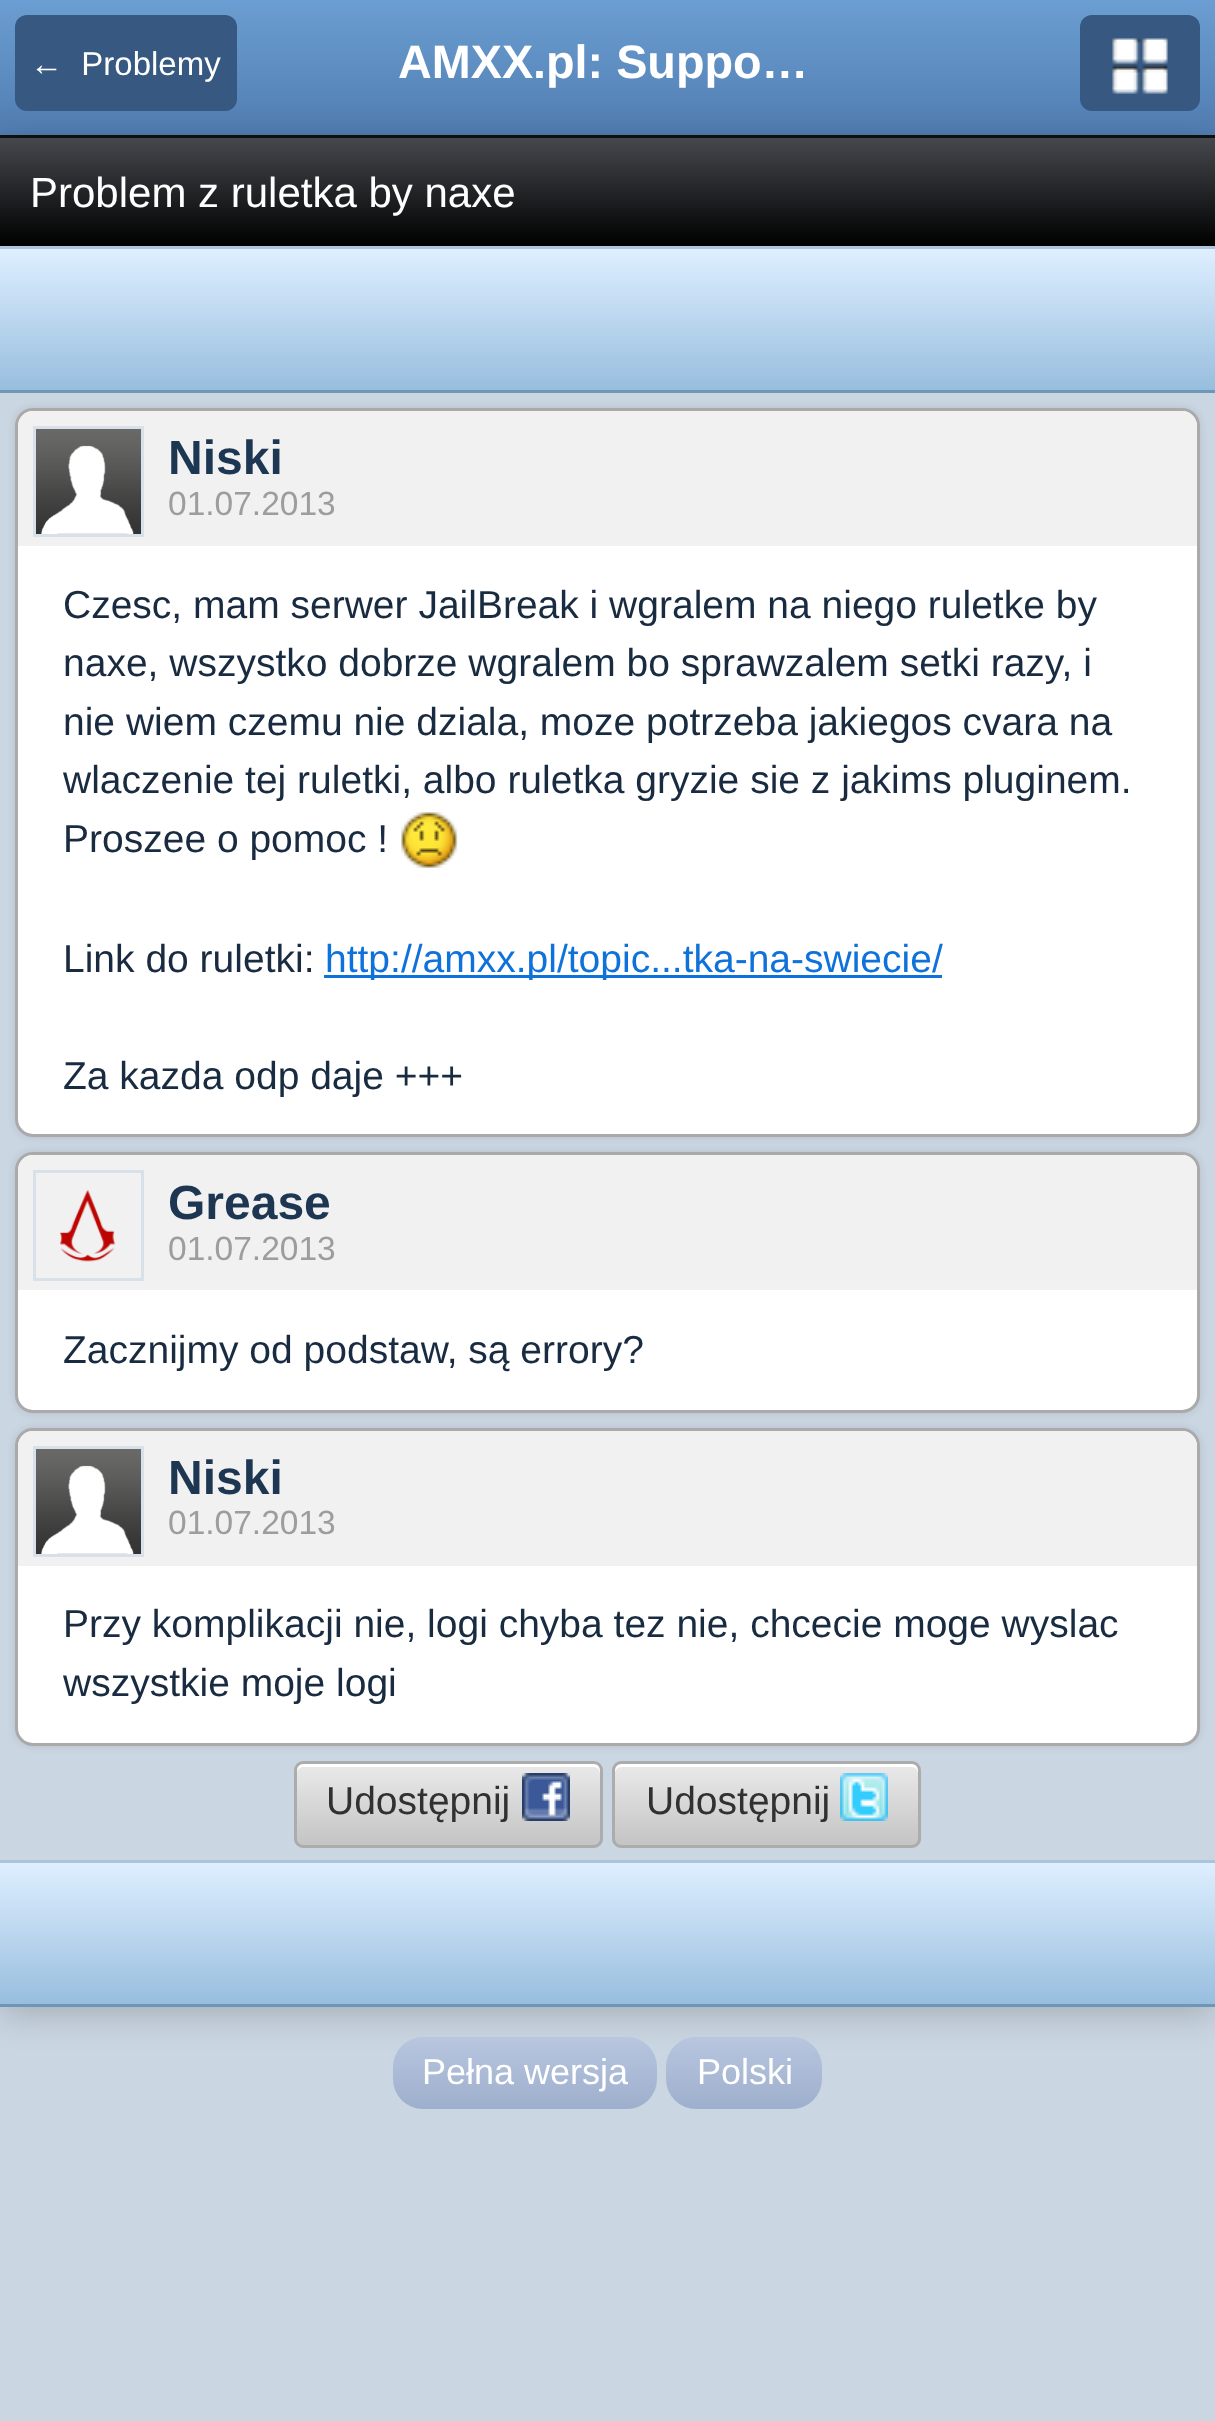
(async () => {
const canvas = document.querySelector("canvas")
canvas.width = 1215
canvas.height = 2421
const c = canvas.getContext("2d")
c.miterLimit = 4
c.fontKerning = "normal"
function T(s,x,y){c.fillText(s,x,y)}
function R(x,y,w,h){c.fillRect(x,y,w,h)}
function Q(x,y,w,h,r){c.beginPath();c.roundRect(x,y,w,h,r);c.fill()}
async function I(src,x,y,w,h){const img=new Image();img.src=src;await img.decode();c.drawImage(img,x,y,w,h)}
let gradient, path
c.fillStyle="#cad6e2"
R(0,0,1215,2421)
gradient = c.createLinearGradient(0,0,0,135)
gradient.addColorStop(0,"#6b9ed2")
gradient.addColorStop(1,"#517db1")
c.fillStyle = gradient
R(0,0,1215,135)
c.fillStyle="#111"
R(0,135,1215,3)
c.save()
path = new Path2D("M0 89h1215v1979h-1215zm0 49h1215v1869h-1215z")
c.clip(path,"evenodd")
c.fillStyle="#00000033"
c.filter="blur(18px)"
c.beginPath()
c.rect(0,144,1215,1869)
c.fill()
c.filter="none"
c.restore()
c.fillStyle="#375880"
Q(15,15,222,96,12)
c.font="33px Liberation Sans"
c.fillStyle="#fff"
T("←  Problemy",30,75)
c.font="bold 46.75px Liberation Sans"
T("AMXX.pl: Suppo…",398,78)
c.fillStyle="#375880"
Q(1080,15,120,96,12)
await I("1.png",1112,38,56,56)
gradient = c.createLinearGradient(0,138,0,246)
gradient.addColorStop(0,"#45484d")
gradient.addColorStop(1,"#000")
c.fillStyle = gradient
R(0,138,1215,108)
c.font="42px Liberation Sans"
c.fillStyle="#fff"
T("Problem z ruletka by naxe",30,207)
gradient = c.createLinearGradient(0,249,0,390)
gradient.addColorStop(0,"#deefff")
gradient.addColorStop(1,"#98bede")
c.fillStyle = gradient
R(0,249,1215,141)
c.fillStyle="#abc4dc"
R(0,246,1215,3)
c.fillStyle="#6f96b7"
R(0,390,1215,3)
c.fillStyle="#0000001a"
c.filter="blur(4.5px)"
c.beginPath()
c.roundRect(15,408,1185,729,18)
c.fill()
c.filter="none"
c.fillStyle="#fff"
c.beginPath()
c.roundRect(16.5,409.5,1182,726,16.5)
c.fill()
c.strokeStyle="#aaa"
c.lineWidth=3
c.stroke()
c.fillStyle="#f1f1f1"
c.beginPath()
c.roundRect(18,411,1179,135,[15,15,0,0])
c.fill()
c.strokeStyle="#d8e1ea"
c.strokeRect(34.5,427.5,108,108)
await I("2.png",36,429,105,105)
c.font="bold 48px Liberation Sans"
c.fillStyle="#1d3652"
T("Niski",168,474)
c.font="33.5px Liberation Sans"
c.fillStyle="#9d9d9d"
T("01.07.2013",168,515)
c.font="39px Liberation Sans"
c.fillStyle="#192b40"
T("Czesc, mam serwer JailBreak i wgralem na niego ruletke by",63,618)
T("naxe, wszystko dobrze wgralem bo sprawzalem setki razy, i",63,676)
T("nie wiem czemu nie dziala, moze potrzeba jakiegos cvara na",63,735)
T("wlaczenie tej ruletki, albo ruletka gryzie sie z jakims pluginem.",63,793)
T("Proszee o pomoc !",63,852)
await I("3.png",401,812,57,56)
T("Link do ruletki:",63,972)
c.fillStyle="#0f72da"
R(324,975,618,3)
T("http://amxx.pl/topic...tka-na-swiecie/",325,972)
c.fillStyle="#192b40"
T("Za kazda odp daje +++",63,1089)
c.fillStyle="#0000001a"
c.filter="blur(4.5px)"
c.beginPath()
c.roundRect(15,1152,1185,261,18)
c.fill()
c.filter="none"
c.fillStyle="#fff"
c.beginPath()
c.roundRect(16.5,1153.5,1182,258,16.5)
c.fill()
c.strokeStyle="#aaa"
c.stroke()
c.fillStyle="#f1f1f1"
c.beginPath()
c.roundRect(18,1155,1179,135,[15,15,0,0])
c.fill()
c.strokeStyle="#d8e1ea"
c.strokeRect(34.5,1171.5,108,108)
await I("4.png",60,1189,56,73)
c.font="bold 48px Liberation Sans"
c.fillStyle="#1d3652"
T("Grease",168,1219)
c.font="33.5px Liberation Sans"
c.fillStyle="#9d9d9d"
T("01.07.2013",168,1260)
c.font="39px Liberation Sans"
c.fillStyle="#192b40"
T("Zacznijmy od podstaw, są errory?",63,1363)
c.fillStyle="#0000001a"
c.filter="blur(4.5px)"
c.beginPath()
c.roundRect(15,1428,1185,318,18)
c.fill()
c.filter="none"
c.fillStyle="#fff"
c.beginPath()
c.roundRect(16.5,1429.5,1182,315,16.5)
c.fill()
c.strokeStyle="#aaa"
c.stroke()
c.fillStyle="#f1f1f1"
c.beginPath()
c.roundRect(18,1431,1179,135,[15,15,0,0])
c.fill()
c.strokeStyle="#d8e1ea"
c.strokeRect(34.5,1447.5,108,108)
await I("2.png",36,1449,105,105)
c.font="bold 48px Liberation Sans"
c.fillStyle="#1d3652"
T("Niski",168,1494)
c.font="33.5px Liberation Sans"
c.fillStyle="#9d9d9d"
T("01.07.2013",168,1534)
c.font="39px Liberation Sans"
c.fillStyle="#192b40"
T("Przy komplikacji nie, logi chyba tez nie, chcecie moge wyslac",63,1637)
T("wszystkie moje logi",63,1696)
c.save()
c.beginPath()
c.roundRect(294,1761,309,87,9)
c.clip()
gradient = c.createLinearGradient(297,1764,297,1845)
gradient.addColorStop(0,"#eaeaea")
gradient.addColorStop(1,"#c4c4c4")
c.fillStyle = gradient
R(294,1764,309,81)
c.restore()
c.fillStyle="#fff"
path = new Path2D("M303 1767h291c3 0 6 3 6 6v-3c0-3-3-6-6-6h-291c-3 0-6 3-6 6v3c0-3 3-6 6-6z")
c.fill(path)
c.beginPath()
c.roundRect(295.5,1762.5,306,84,7.5)
c.strokeStyle="#acacac"
c.stroke()
c.fillStyle="#313131"
T("Udostępnij",326,1814)
await I("5.png",522,1773,48,48)
c.save()
c.beginPath()
c.roundRect(612,1761,309,87,9)
c.clip()
gradient = c.createLinearGradient(615,1764,615,1845)
gradient.addColorStop(0,"#eaeaea")
gradient.addColorStop(1,"#c4c4c4")
c.fillStyle = gradient
R(612,1764,309,81)
c.restore()
c.fillStyle="#fff"
path = new Path2D("M621 1767h291c3 0 6 3 6 6v-3c0-3-3-6-6-6h-291c-3 0-6 3-6 6v3c0-3 3-6 6-6z")
c.fill(path)
c.beginPath()
c.roundRect(613.5,1762.5,306,84,7.5)
c.stroke()
c.fillStyle="#313131"
T("Udostępnij",646,1814)
await I("6.png",840,1773,48,48)
gradient = c.createLinearGradient(0,1863,0,2004)
gradient.addColorStop(0,"#deefff")
gradient.addColorStop(1,"#98bede")
c.fillStyle = gradient
R(0,1863,1215,141)
c.fillStyle="#abc4dc"
R(0,1860,1215,3)
c.fillStyle="#6f96b7"
R(0,2004,1215,3)
gradient = c.createLinearGradient(393,2037,393,2109)
gradient.addColorStop(0,"#b8c6df")
gradient.addColorStop(1,"#9eafcd")
c.fillStyle = gradient
Q(393,2037,264,72,30)
c.font="36px Liberation Sans"
c.fillStyle="#fff"
T("Pełna wersja",422,2084)
gradient = c.createLinearGradient(666,2037,666,2109)
gradient.addColorStop(0,"#b8c6df")
gradient.addColorStop(1,"#9eafcd")
c.fillStyle = gradient
Q(666,2037,156,72,30)
c.fillStyle="#fff"
T("Polski",697,2084)
})()
